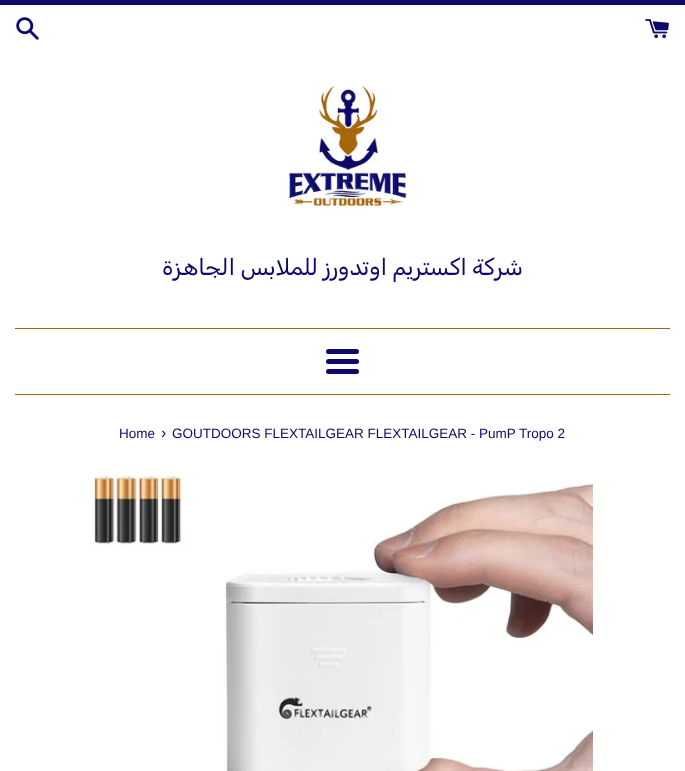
(async () => {
const canvas = document.querySelector("canvas")
canvas.width = 685
canvas.height = 771
const c = canvas.getContext("2d")
c.miterLimit = 4
c.fontKerning = "normal"
function T(s,x,y){c.fillText(s,x,y)}
function R(x,y,w,h){c.fillRect(x,y,w,h)}
function Q(x,y,w,h,r){c.beginPath();c.roundRect(x,y,w,h,r);c.fill()}
async function I(src,x,y,w,h){const img=new Image();img.src=src;await img.decode();c.drawImage(img,x,y,w,h)}
c.fillStyle="#fff"
R(0,0,685,771)
c.fillStyle="#0e0a69"
R(0,0,685,5)
await I("1.png",16,17,23,23)
await I("2.png",645,19,24,20)
await I("3.png",288,84,120,127)
c.wordSpacing="-0.5px"
c.direction="rtl"
c.font="23px Rubik"
T("شركة اكستريم اوتدورز للملابس الجاهزة",523,275)
c.fillStyle="#a56709"
R(15,328,655,1)
c.fillStyle="#0e0a69"
Q(326,349,33,5,2.5)
Q(326,359,33,5,2.5)
Q(326,369,33,5,2.5)
c.fillStyle="#a56709"
R(15,394,655,1)
c.wordSpacing="0px"
c.direction="ltr"
c.font="13.5px Liberation Sans"
c.fillStyle="#0e0a69"
T("Home",119,438)
c.font="16px Liberation Sans"
T("›",161,438)
c.font="13.5px Liberation Sans"
T("GOUTDOORS FLEXTAILGEAR FLEXTAILGEAR - PumP Tropo 2",172,438)
await I("4.png",93,473,500,298)
})()
